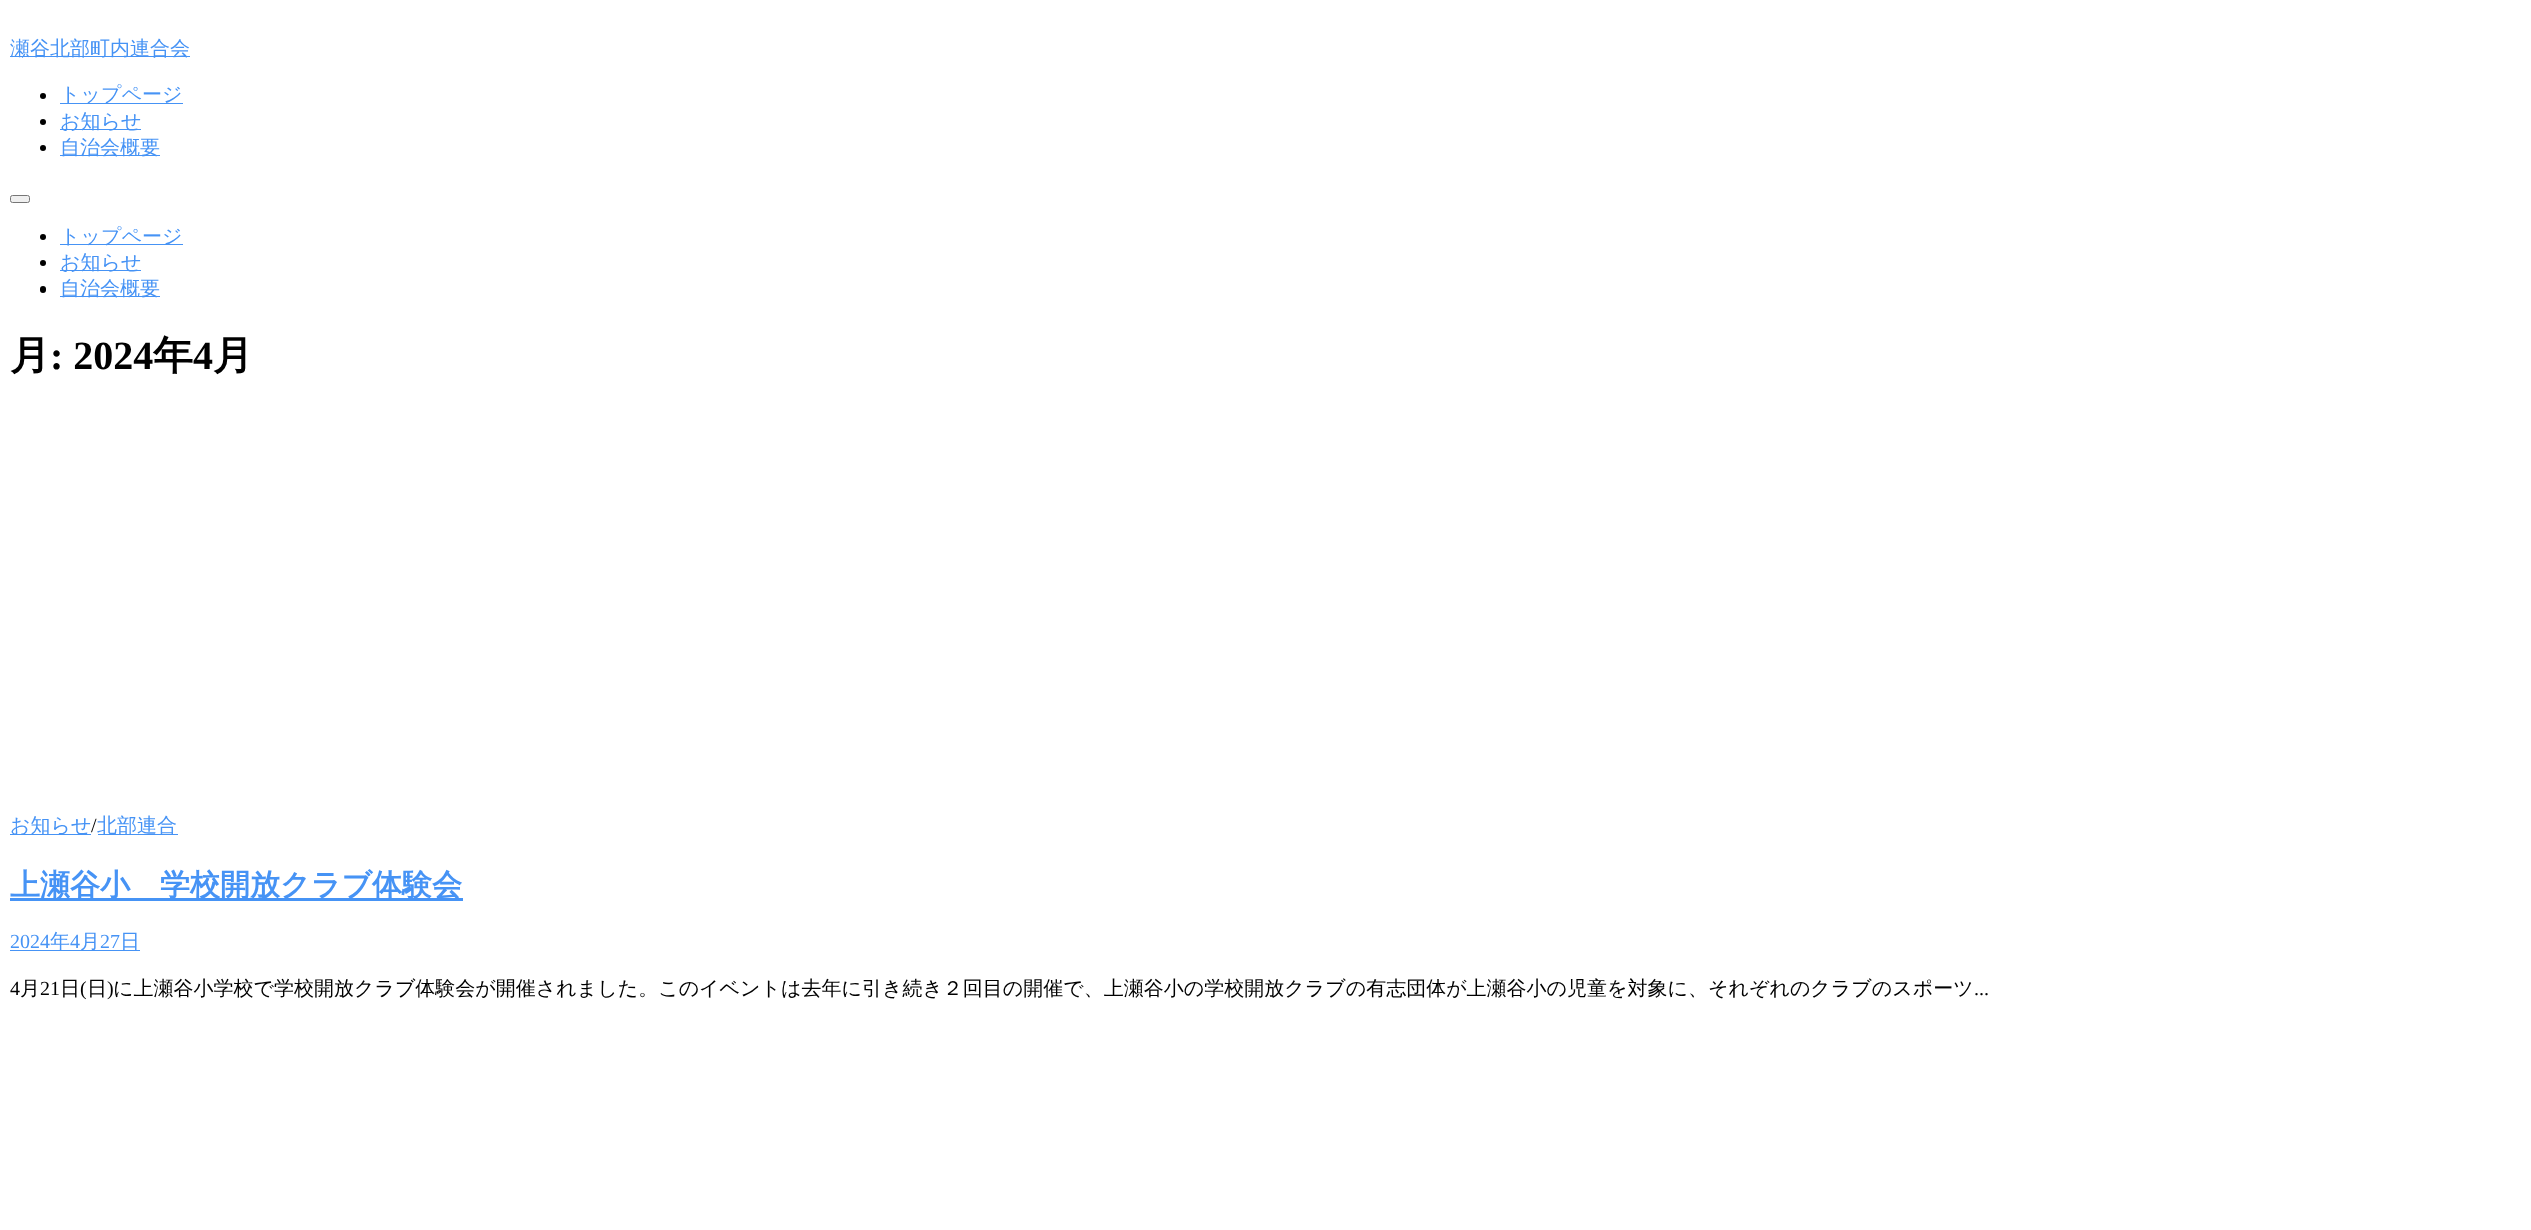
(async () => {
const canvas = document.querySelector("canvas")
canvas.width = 2531
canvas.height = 1230
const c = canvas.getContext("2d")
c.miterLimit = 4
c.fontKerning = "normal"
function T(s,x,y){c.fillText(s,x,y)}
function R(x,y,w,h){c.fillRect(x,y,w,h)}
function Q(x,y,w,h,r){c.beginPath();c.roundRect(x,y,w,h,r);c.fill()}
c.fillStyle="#fff"
R(0,0,2531,1230)
c.fillStyle="#4693f5"
R(10,56,180,1)
c.font="500 20px WenQuanYi Zen Hei"
T("瀬谷北部町内連合会",10,55)
c.fillStyle="#000"
c.beginPath()
c.arc(43,96,3,0,7)
c.fill()
c.fillStyle="#4693f5"
R(60,103,123,1)
T("トップページ",60,101)
c.fillStyle="#000"
c.beginPath()
c.arc(43,122,3,0,7)
c.fill()
c.fillStyle="#4693f5"
R(60,129,81,1)
T("お知らせ",60,128)
c.fillStyle="#000"
c.beginPath()
c.arc(43,148,3,0,7)
c.fill()
c.fillStyle="#4693f5"
R(60,155,100,1)
T("自治会概要",60,154)
c.fillStyle="#efefef"
c.beginPath()
c.roundRect(10.5,195.5,19,7,2)
c.fill()
c.strokeStyle="#767676"
c.stroke()
c.fillStyle="#000"
c.beginPath()
c.arc(43,237,3,0,7)
c.fill()
c.fillStyle="#4693f5"
R(60,244,123,1)
T("トップページ",60,243)
c.fillStyle="#000"
c.beginPath()
c.arc(43,263,3,0,7)
c.fill()
c.fillStyle="#4693f5"
R(60,270,81,1)
T("お知らせ",60,269)
c.fillStyle="#000"
Q(40,286,6,7,3)
c.fillStyle="#4693f5"
R(60,296,100,1)
T("自治会概要",60,295)
c.font="bold 40px WenQuanYi Zen Hei"
c.fillStyle="#000"
T("月",10,369)
c.font="bold 40px Liberation Serif"
T(": 2024",50,369)
c.font="bold 40px WenQuanYi Zen Hei"
T("年",153,369)
c.font="bold 40px Liberation Serif"
T("4",193,369)
c.font="bold 40px WenQuanYi Zen Hei"
T("月",213,369)
c.fillStyle="#4693f5"
R(10,834,81,1)
c.font="500 20px WenQuanYi Zen Hei"
T("お知らせ",10,832)
c.font="20px Liberation Serif"
c.fillStyle="#000"
T("/",91,832)
c.fillStyle="#4693f5"
R(98,834,80,1)
c.font="500 20px WenQuanYi Zen Hei"
T("北部連合",97,832)
R(10,898,453,3)
c.font="bold 30px WenQuanYi Zen Hei"
T("上瀬谷小　学校開放クラブ体験会",10,895)
c.font="20px Liberation Serif"
T("2024",10,948)
R(10,950,130,1)
c.font="500 20px WenQuanYi Zen Hei"
T("年",50,948)
c.font="20px Liberation Serif"
T("4",70,948)
c.font="500 20px WenQuanYi Zen Hei"
T("月",80,948)
c.font="20px Liberation Serif"
T("27",100,948)
c.font="500 20px WenQuanYi Zen Hei"
T("日",120,948)
c.font="20px Liberation Serif"
c.fillStyle="#000"
T("4",10,995)
c.font="500 20px WenQuanYi Zen Hei"
T("月",20,995)
c.font="20px Liberation Serif"
T("21",40,995)
c.font="500 20px WenQuanYi Zen Hei"
T("日",60,995)
c.font="20px Liberation Serif"
T("(",80,995)
c.font="500 20px WenQuanYi Zen Hei"
T("日",87,995)
c.font="20px Liberation Serif"
T(")",107,995)
c.font="500 20px WenQuanYi Zen Hei"
T("に上瀬谷小学校で学校開放クラブ体験会が開催されました。このイベントは去年に引き続き２回目の開催で、上瀬谷小の学校開放クラブの有志団体が上瀬谷小の児童を対象に、それぞれのクラブのスポーツ",113,995)
c.font="20px Liberation Serif"
T("...",1974,995)
})()
